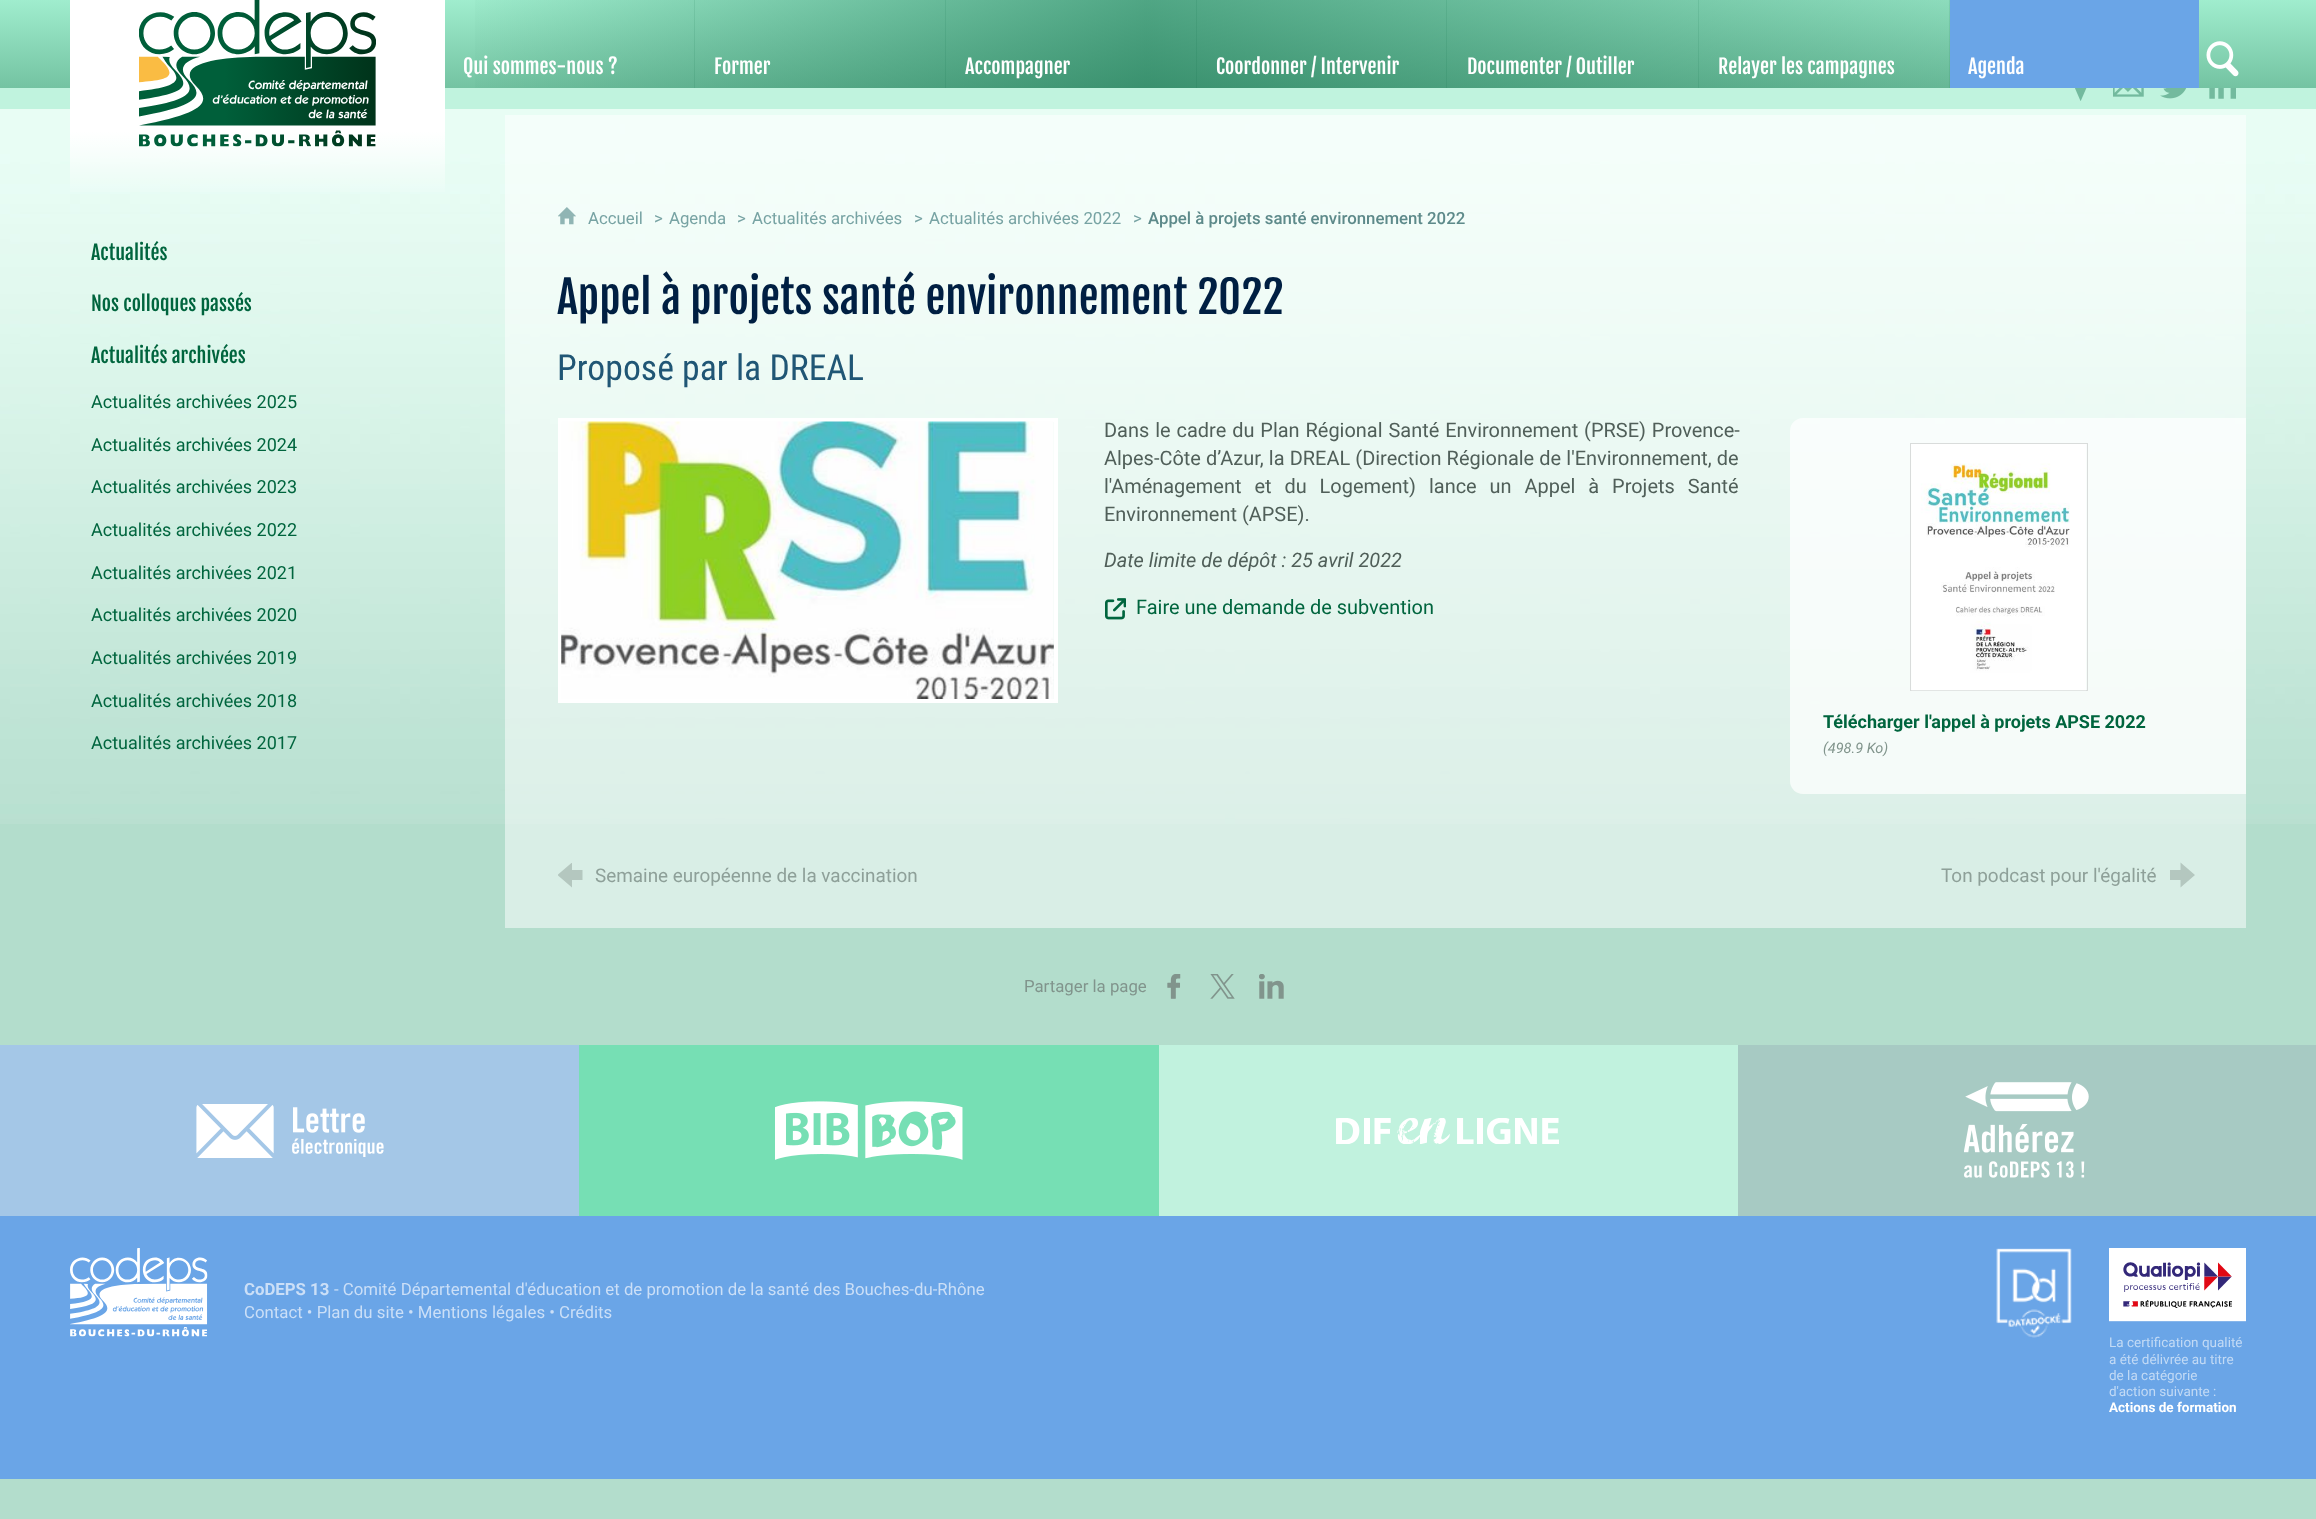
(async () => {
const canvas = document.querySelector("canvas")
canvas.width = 2316
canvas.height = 1519
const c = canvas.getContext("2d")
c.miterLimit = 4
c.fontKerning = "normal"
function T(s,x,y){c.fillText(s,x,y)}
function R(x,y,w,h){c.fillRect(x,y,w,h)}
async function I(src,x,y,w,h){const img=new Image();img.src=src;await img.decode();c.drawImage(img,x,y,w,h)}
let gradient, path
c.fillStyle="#b3ddcc"
R(0,0,2316,1519)
await I("1.png",0,109,2316,715)
c.fillStyle="#c0f3de"
R(0,88,2316,21)
gradient = c.createLinearGradient(1158,0,1158,88)
gradient.addColorStop(0,"#a0edce")
gradient.addColorStop(1,"#74c3a2")
c.fillStyle = gradient
R(0,0,2316,88)
gradient = c.createLinearGradient(258,-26,258,199)
gradient.addColorStop(.1,"#fff")
gradient.addColorStop(.7,"#fff")
gradient.addColorStop(1,"#ffffff00")
c.fillStyle = gradient
R(70,0,375,192)
await I("2.png",139,0,237,147)
await I("3.png",2075,88,12,13)
await I("4.png",2113,88,31,9)
await I("5.png",2160,88,27,11)
await I("6.png",2209,88,27,11)
gradient = c.createLinearGradient(445,44,2199,44)
gradient.addColorStop(0,"#005f3b00")
gradient.addColorStop(.4,"#005f3b80")
gradient.addColorStop(1,"#005f3b00")
c.fillStyle = gradient
R(475,0,1475,88)
c.fillStyle="#005f3b1a"
R(694,0,1,88)
c.font="19.95px Fjalla One"
c.fillStyle="#fff"
T("Qui sommes-nous ?",463,74)
c.fillStyle="#005f3b1a"
R(945,0,1,88)
c.fillStyle="#fff"
T("Former",714,74)
c.fillStyle="#005f3b1a"
R(1196,0,1,88)
c.fillStyle="#fff"
T("Accompagner",965,74)
c.fillStyle="#005f3b1a"
R(1446,0,1,88)
c.fillStyle="#fff"
T("Coordonner / Intervenir",1216,74)
c.fillStyle="#005f3b1a"
R(1698,0,1,88)
c.fillStyle="#fff"
T("Documenter / Outiller",1467,74)
c.fillStyle="#005f3b1a"
R(1949,0,1,88)
c.fillStyle="#fff"
T("Relayer les campagnes",1718,74)
c.fillStyle="#6aa5e7"
R(1950,0,249,88)
c.fillStyle="#fff"
T("Agenda",1968,74)
await I("7.png",2206,41,33,36)
c.font="19.75px Fjalla One"
c.fillStyle="#00653e"
T("Actualités",91,260)
T("Nos colloques passés",91,311)
T("Actualités archivées",91,363)
c.font="18px Roboto"
T("Actualités archivées 2025",91,408)
T("Actualités archivées 2024",91,451)
T("Actualités archivées 2023",91,493)
T("Actualités archivées 2022",91,536)
T("Actualités archivées 2021",91,579)
T("Actualités archivées 2020",91,621)
T("Actualités archivées 2019",91,664)
T("Actualités archivées 2018",91,707)
T("Actualités archivées 2017",91,749)
c.fillStyle="#ffffff80"
R(505,115,1741,813)
await I("8.png",558,207,18,18)
c.font="16.8px Roboto"
c.fillStyle="#77a3a3"
T("Accueil",588,224)
T(">",654,224)
T("Agenda",669,224)
T(">",737,224)
T("Actualités archivées",752,224)
T(">",914,224)
T("Actualités archivées 2022",929,224)
T(">",1133,224)
c.font="500 16.8px Roboto"
c.fillStyle="#5d8a8a"
T("Appel à projets santé environnement 2022",1148,224)
c.font="44.1px Fjalla One"
c.fillStyle="#001f42"
T("Appel à projets santé environnement 2022",557,314)
c.font="35.75px Roboto Condensed"
c.fillStyle="#205675"
T("Proposé par la DREAL",557,380)
c.strokeStyle="#fff"
c.lineWidth=4
c.strokeRect(560,420,496,281)
await I("9.png",561,421,493,278)
c.wordSpacing="1px"
c.font="19.95px Roboto"
c.fillStyle="#505f59"
T("Dans le cadre du Plan Régional Santé Environnement (PRSE) Provence-",1104,437)
c.wordSpacing="0.25px"
T("Alpes-Côte d’Azur, la DREAL (Direction Régionale de l'Environnement, de",1104,465)
c.wordSpacing="8px"
T("l'Aménagement et du Logement) lance un Appel à Projets Santé",1104,493)
c.wordSpacing="0px"
T("Environnement (APSE).",1104,521)
c.font="italic 19.95px Roboto"
T("Date limite de dépôt : 25 avril 2022",1104,567)
await I("10.png",1105,598,21,22)
c.font="19.95px Roboto"
c.fillStyle="#00653e"
T("Faire une demande de subvention",1136,614)
c.fillStyle="#ffffffb3"
c.beginPath()
c.roundRect(1790,418,456,376,[13,0,0,13])
c.fill()
c.strokeStyle="#d9dcdb"
c.lineWidth=1
c.strokeRect(1910.5,443.5,177,247)
await I("11.png",1911,444,175,247)
c.font="bold 18px Roboto"
c.fillStyle="#00653e"
T("Télécharger l'appel à projets APSE 2022",1823,728)
c.font="italic 14.5px Roboto"
c.fillStyle="#81948c"
T("(498.9 Ko)",1823,753)
c.save()
c.beginPath()
c.rect(558,863,25,25)
c.clip()
c.fillStyle="#b4c7bf"
path = new Path2D("M572 880h10.5v-10h-10.5v-7.5l-14.5 12.5l14.5 12.5v-7.5")
c.fill(path)
c.restore()
c.font="18.9px Roboto"
c.fillStyle="#8ea099"
T("Semaine européenne de la vaccination",595,882)
T("Ton podcast pour l'égalité",1941,882)
c.fillStyle="#b4c7bf"
path = new Path2D("M2180.5 880v7.5l14.5-12.5l-14.5-12.5v7.5h-10.5v10h10.5")
c.fill(path)
c.font="16.8px Roboto"
c.fillStyle="#81948c"
T("Partager la page",1024,992)
await I("12.png",1167,974,14,25)
await I("13.png",1210,974,25,25)
await I("14.png",1259,974,25,25)
c.fillStyle="#a4c7e7"
R(0,1045,579,171)
await I("15.png",196,1104,188,54)
c.fillStyle="#76dfb4"
R(579,1045,580,171)
await I("16.png",775,1101,188,59)
c.fillStyle="#c1f2de"
R(1159,1045,579,171)
await I("17.png",1336,1118,223,26)
c.fillStyle="#a7cac3"
R(1738,1045,578,171)
await I("18.png",1964,1082,125,96)
c.fillStyle="#6aa5e7"
R(0,1216,2316,263)
await I("19.png",70,1248,138,89)
c.font="bold 16.8px Roboto"
c.fillStyle="#cbdff7"
T("CoDEPS 13",244,1295)
c.font="16.8px Roboto"
T("- Comité Départemental d'éducation et de promotion de la santé des Bouches-du-Rhône",334,1295)
T("Contact • Plan du site • Mentions légales • Crédits",244,1318)
await I("20.png",1996,1248,76,90)
await I("21.png",2109,1248,137,74)
c.font="13.5px Roboto"
c.fillStyle="#c2daf5"
T("La certification qualité",2109,1347)
T("a été délivrée au titre",2109,1364)
T("de la catégorie",2109,1380)
T("d'action suivante :",2109,1396)
c.font="bold 13.5px Roboto"
c.fillStyle="#fff"
T("Actions de formation",2109,1412)
})()
